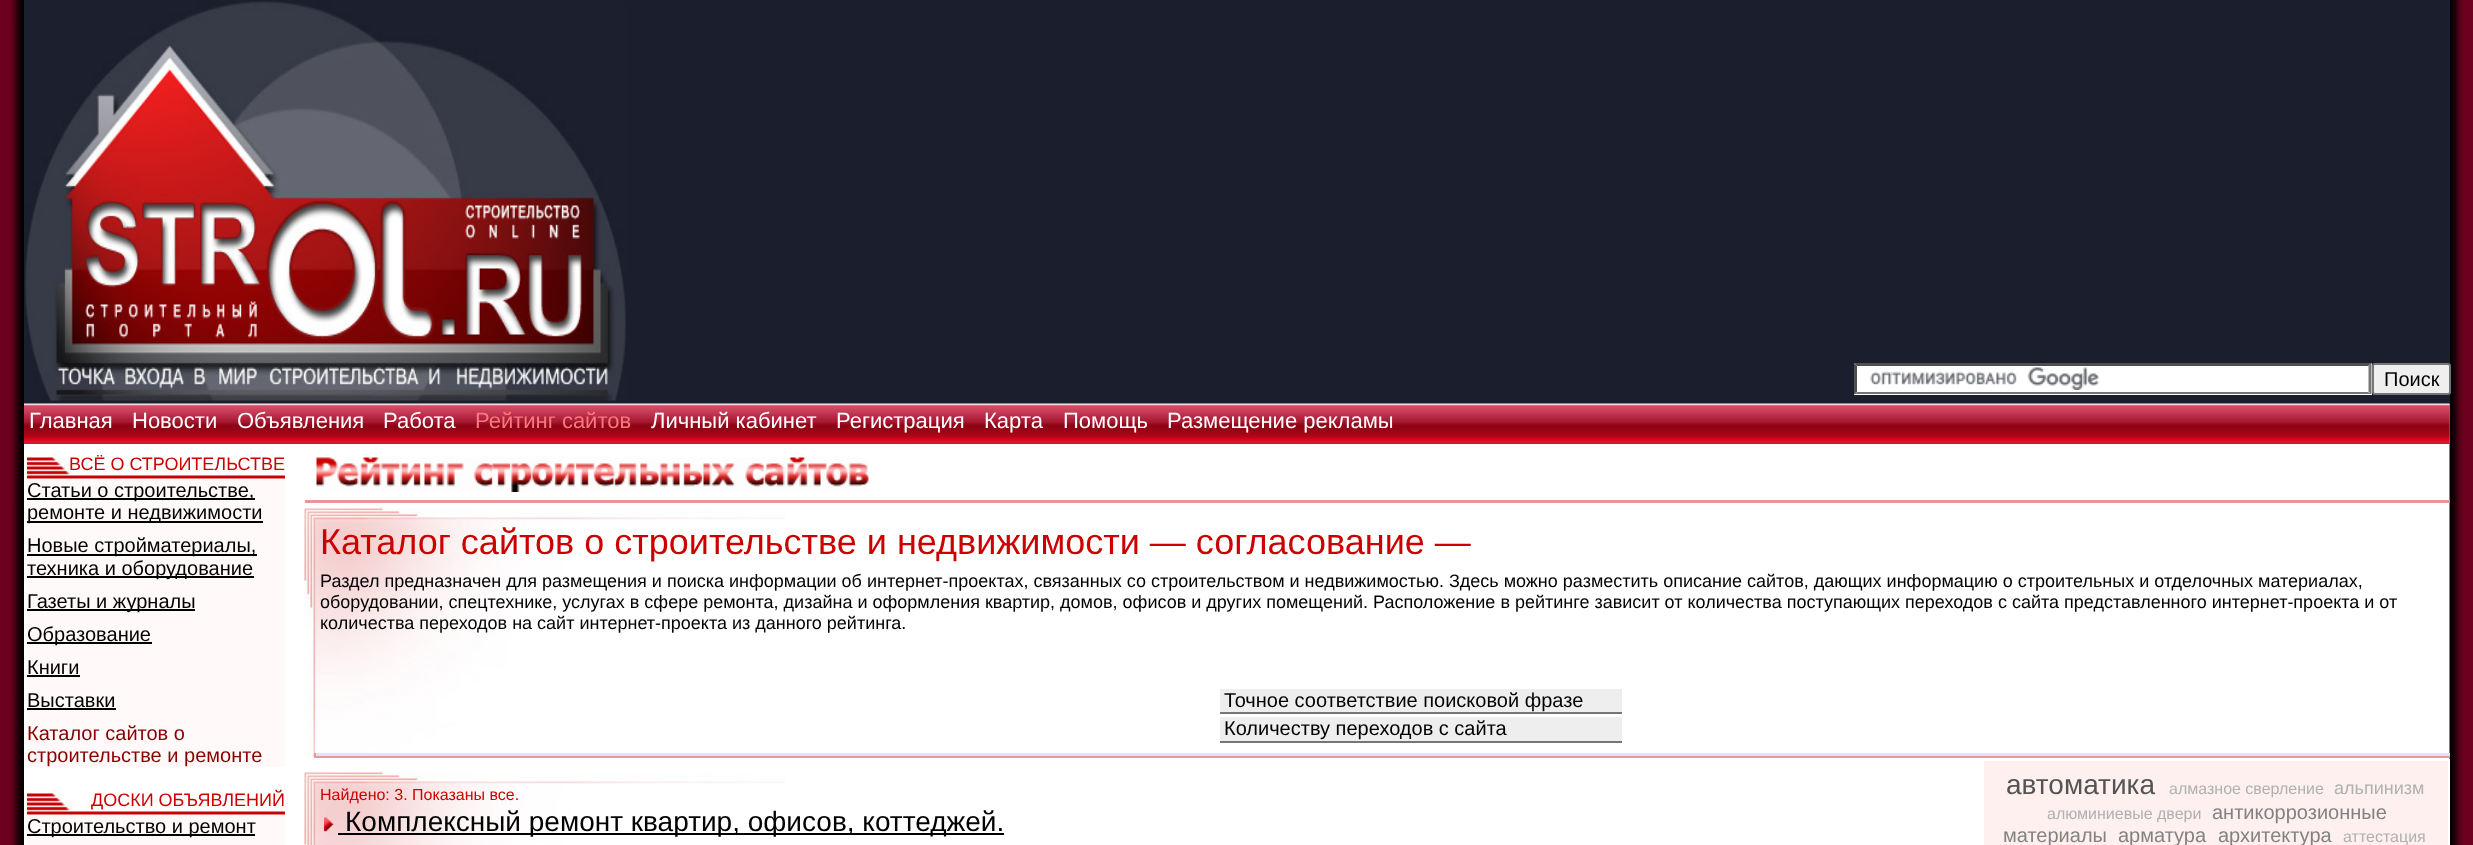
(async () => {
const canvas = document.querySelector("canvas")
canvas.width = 2473
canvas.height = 845
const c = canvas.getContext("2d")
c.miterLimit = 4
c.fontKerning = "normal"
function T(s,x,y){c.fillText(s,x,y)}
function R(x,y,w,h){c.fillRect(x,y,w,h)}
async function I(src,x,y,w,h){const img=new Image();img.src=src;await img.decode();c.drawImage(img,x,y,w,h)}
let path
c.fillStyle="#fff"
R(0,0,2473,845)
await I("1.png",2449,0,24,845)
await I("2.png",0,0,24,845)
c.fillStyle="#1b1f2d"
R(24,0,2426,404)
await I("3.png",25,1,601,400)
c.fillStyle="#fff"
R(1854,363,518,32)
await I("4.png",1870,367,229,23)
c.fillStyle="#4f4f4f"
path = new Path2D("M1854 363h518l-4 3h-511z")
c.fill(path)
c.fillStyle="#767676"
path = new Path2D("M2371.5 363v31.5l-3-3v-25.5z")
c.fill(path)
path = new Path2D("M2372 394h-518l3-2h511z")
c.fill(path)
c.fillStyle="#4f4f4f"
path = new Path2D("M1854 394.5v-31.5l3 3v25.5z")
c.fill(path)
c.fillStyle="#efefef"
c.beginPath()
c.roundRect(2373,364,77,30,2)
c.fill()
c.strokeStyle="#767676"
c.lineWidth=2
c.stroke()
c.font="20px Liberation Sans"
c.fillStyle="#000"
T("Поиск",2384,386)
await I("5.png",24,403,2426,41)
c.font="22px Liberation Sans"
c.fillStyle="#fff"
T("Главная",29,428)
T("Новости",132,428)
T("Объявления",237,428)
T("Работа",383,428)
c.fillStyle="#f8797d"
T("Рейтинг сайтов",475,428)
c.fillStyle="#fff"
T("Личный кабинет",651,428)
T("Регистрация",836,428)
T("Карта",984,428)
T("Помощь",1063,428)
T("Размещение рекламы",1167,428)
await I("6.png",27,453,258,26)
c.font="18px Liberation Sans"
c.fillStyle="#c00"
T("ВСЁ О СТРОИТЕЛЬСТВЕ",69,470)
c.fillStyle="#fff9f9"
R(27,479,258,288)
c.fillStyle="#000"
R(27,498,228,2)
c.font="20px Liberation Sans"
T("Статьи о строительстве,",27,497)
R(27,521,236,2)
T("ремонте и недвижимости",27,519)
R(27,554,230,2)
T("Новые стройматериалы,",27,552)
R(27,576,227,2)
T("техника и оборудование",27,575)
R(27,609,168,2)
T("Газеты и журналы",27,608)
R(27,642,125,2)
T("Образование",27,641)
T("Книги",27,674)
R(27,675,53,2)
T("Выставки",27,707)
R(27,708,89,2)
c.fillStyle="#800"
T("Каталог сайтов о",27,740)
T("строительстве и ремонте",27,762)
await I("6.png",27,789,258,26)
c.font="18px Liberation Sans"
c.fillStyle="#c00"
T("ДОСКИ ОБЪЯВЛЕНИЙ",91,806)
c.fillStyle="#fff9f9"
R(27,815,258,30)
c.fillStyle="#000"
R(27,834,228,2)
c.font="20px Liberation Sans"
T("Строительство и ремонт",27,833)
c.fillStyle="#ea9694"
R(305,500,2145,3)
await I("7.png",316,457,553,35)
await I("8.png",304,508,481,250)
c.font="36px Liberation Sans"
c.fillStyle="#c00"
T("Каталог сайтов о строительстве и недвижимости — согласование —",320,554)
c.font="18px Liberation Sans"
c.fillStyle="#000"
T("Раздел предназначен для размещения и поиска информации об интернет-проектах, связанных со строительством и недвижимостью. Здесь можно разместить описание сайтов, дающих информацию о строительных и отделочных материалах,",320,587)
T("оборудовании, спецтехнике, услугах в сфере ремонта, дизайна и оформления квартир, домов, офисов и других помещений. Расположение в рейтинге зависит от количества поступающих переходов с сайта представленного интернет-проекта и от",320,608)
T("количества переходов на сайт интернет-проекта из данного рейтинга.",320,629)
c.fillStyle="#eee"
R(1220,689,402,23)
c.save()
c.beginPath()
c.rect(1220,689,402,27)
c.clip()
c.beginPath()
c.roundRect(1218,687,433,26,2)
c.stroke()
c.restore()
c.font="20px Liberation Sans"
c.fillStyle="#000"
T("Точное соответствие поисковой фразе",1224,707)
c.fillStyle="#eee"
R(1220,717,402,24)
c.save()
c.beginPath()
c.rect(1220,717,402,27)
c.clip()
c.beginPath()
c.roundRect(1218,715,433,27,2)
c.stroke()
c.restore()
c.fillStyle="#000"
T("Количеству переходов с сайта",1224,735)
c.fillStyle="#e0e0ff"
R(315,753,2135,3)
c.fillStyle="#ea9694"
R(314,756,2136,2)
R(314,753,2,5)
await I("9.png",304,772,481,73)
c.font="16px Liberation Sans"
c.fillStyle="#c00"
T("Найдено: 3. Показаны все.",320,800)
await I("10.png",324,817,10,15)
c.fillStyle="#000"
R(338,833,666,2)
c.font="28px Liberation Sans"
T("Комплексный ремонт квартир, офисов, коттеджей.",345,831)
c.fillStyle="#fff0f0"
c.beginPath()
c.rect(1983,760,466,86)
c.fill()
c.strokeStyle="#fff"
c.stroke()
c.fillStyle="#545454"
T("автоматика",2006,794)
c.font="16px Liberation Sans"
c.fillStyle="#b0b0b0"
T("алмазное сверление",2169,794)
c.font="18px Liberation Sans"
T("альпинизм",2334,794)
c.font="16px Liberation Sans"
T("алюминиевые двери",2047,819)
c.font="20px Liberation Sans"
c.fillStyle="#828282"
T("антикоррозионные",2212,819)
T("материалы",2003,842)
T("арматура",2118,842)
T("архитектура",2218,842)
c.font="16px Liberation Sans"
c.fillStyle="#b0b0b0"
T("аттестация",2343,842)
})()
